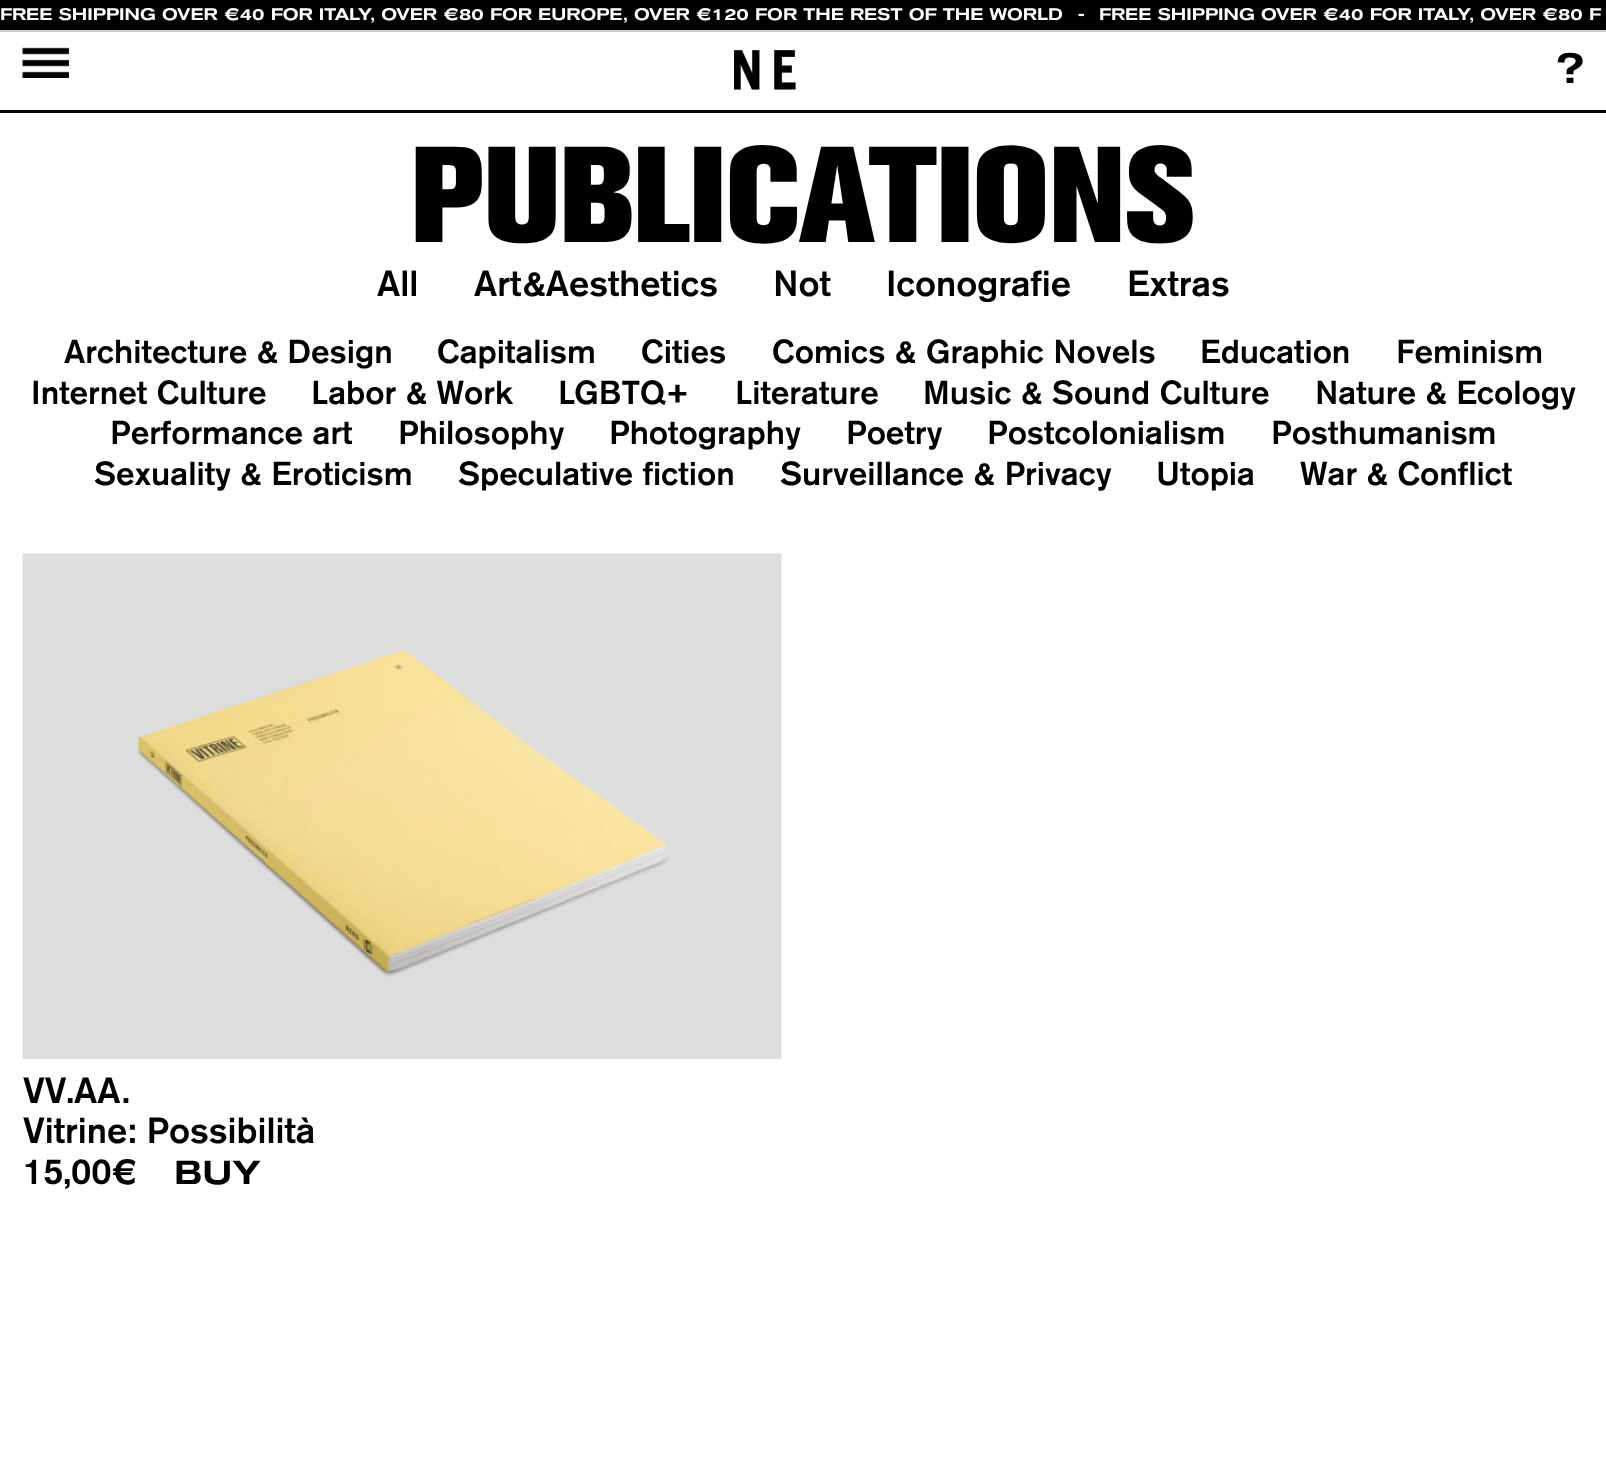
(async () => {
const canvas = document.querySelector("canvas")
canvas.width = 1606
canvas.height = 1466
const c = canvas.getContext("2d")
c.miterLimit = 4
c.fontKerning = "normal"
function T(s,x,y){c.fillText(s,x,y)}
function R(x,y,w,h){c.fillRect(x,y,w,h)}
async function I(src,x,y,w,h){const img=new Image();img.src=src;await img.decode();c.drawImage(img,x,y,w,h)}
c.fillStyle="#fff"
R(0,0,1606,1466)
c.fillStyle="#000"
R(0,110,1606,3)
R(0,0,1606,30)
c.fillStyle="#ccc"
R(0,30,1606,2)
c.font="500 16.5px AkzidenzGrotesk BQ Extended"
c.fillStyle="#fff"
T("FREE SHIPPING OVER €40 FOR ITALY, OVER €80 FOR EUROPE, OVER €120 FOR THE REST OF THE WORLD",0,20)
T("-",1078,20)
T("FREE SHIPPING OVER €40 FOR ITALY, OVER €80 F",1099,20)
await I("1.png",22,47,47,31)
await I("2.png",734,50,62,40)
c.font="500 42px AkzidenzGrotesk BQ Extended"
c.fillStyle="#000"
T("?",1555,83)
c.font="bold 135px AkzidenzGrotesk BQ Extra"
T("PUBLICATIONS",411,242)
c.font="500 36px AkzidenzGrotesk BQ"
T("All",377,296)
T("Art&Aesthetics",474,296)
T("Not",773,296)
T("Iconografie",886,296)
T("Extras",1127,296)
c.font="500 33px AkzidenzGrotesk BQ"
T("Architecture & Design",64,363)
T("Capitalism",437,363)
T("Cities",641,363)
T("Comics & Graphic Novels",772,363)
T("Education",1200,363)
T("Feminism",1396,363)
T("Internet Culture",31,404)
T("Labor & Work",311,404)
T("LGBTQ+",558,404)
T("Literature",735,404)
T("Music & Sound Culture",923,404)
T("Nature & Ecology",1315,404)
T("Performance art",110,444)
T("Philosophy",398,444)
T("Photography",609,444)
T("Poetry",846,444)
T("Postcolonialism",987,444)
T("Posthumanism",1271,444)
T("Sexuality & Eroticism",94,485)
T("Speculative fiction",458,485)
T("Surveillance & Privacy",780,485)
T("Utopia",1156,485)
T("War & Conflict",1300,485)
await I("3.png",22,553,760,506)
c.font="500 36px AkzidenzGrotesk BQ"
T("VV.AA.",23,1103)
T("Vitrine: Possibilità",23,1143)
T("15,00€",23,1184)
c.font="500 33px AkzidenzGrotesk BQ Extended"
T("BUY",174,1184)
})()
